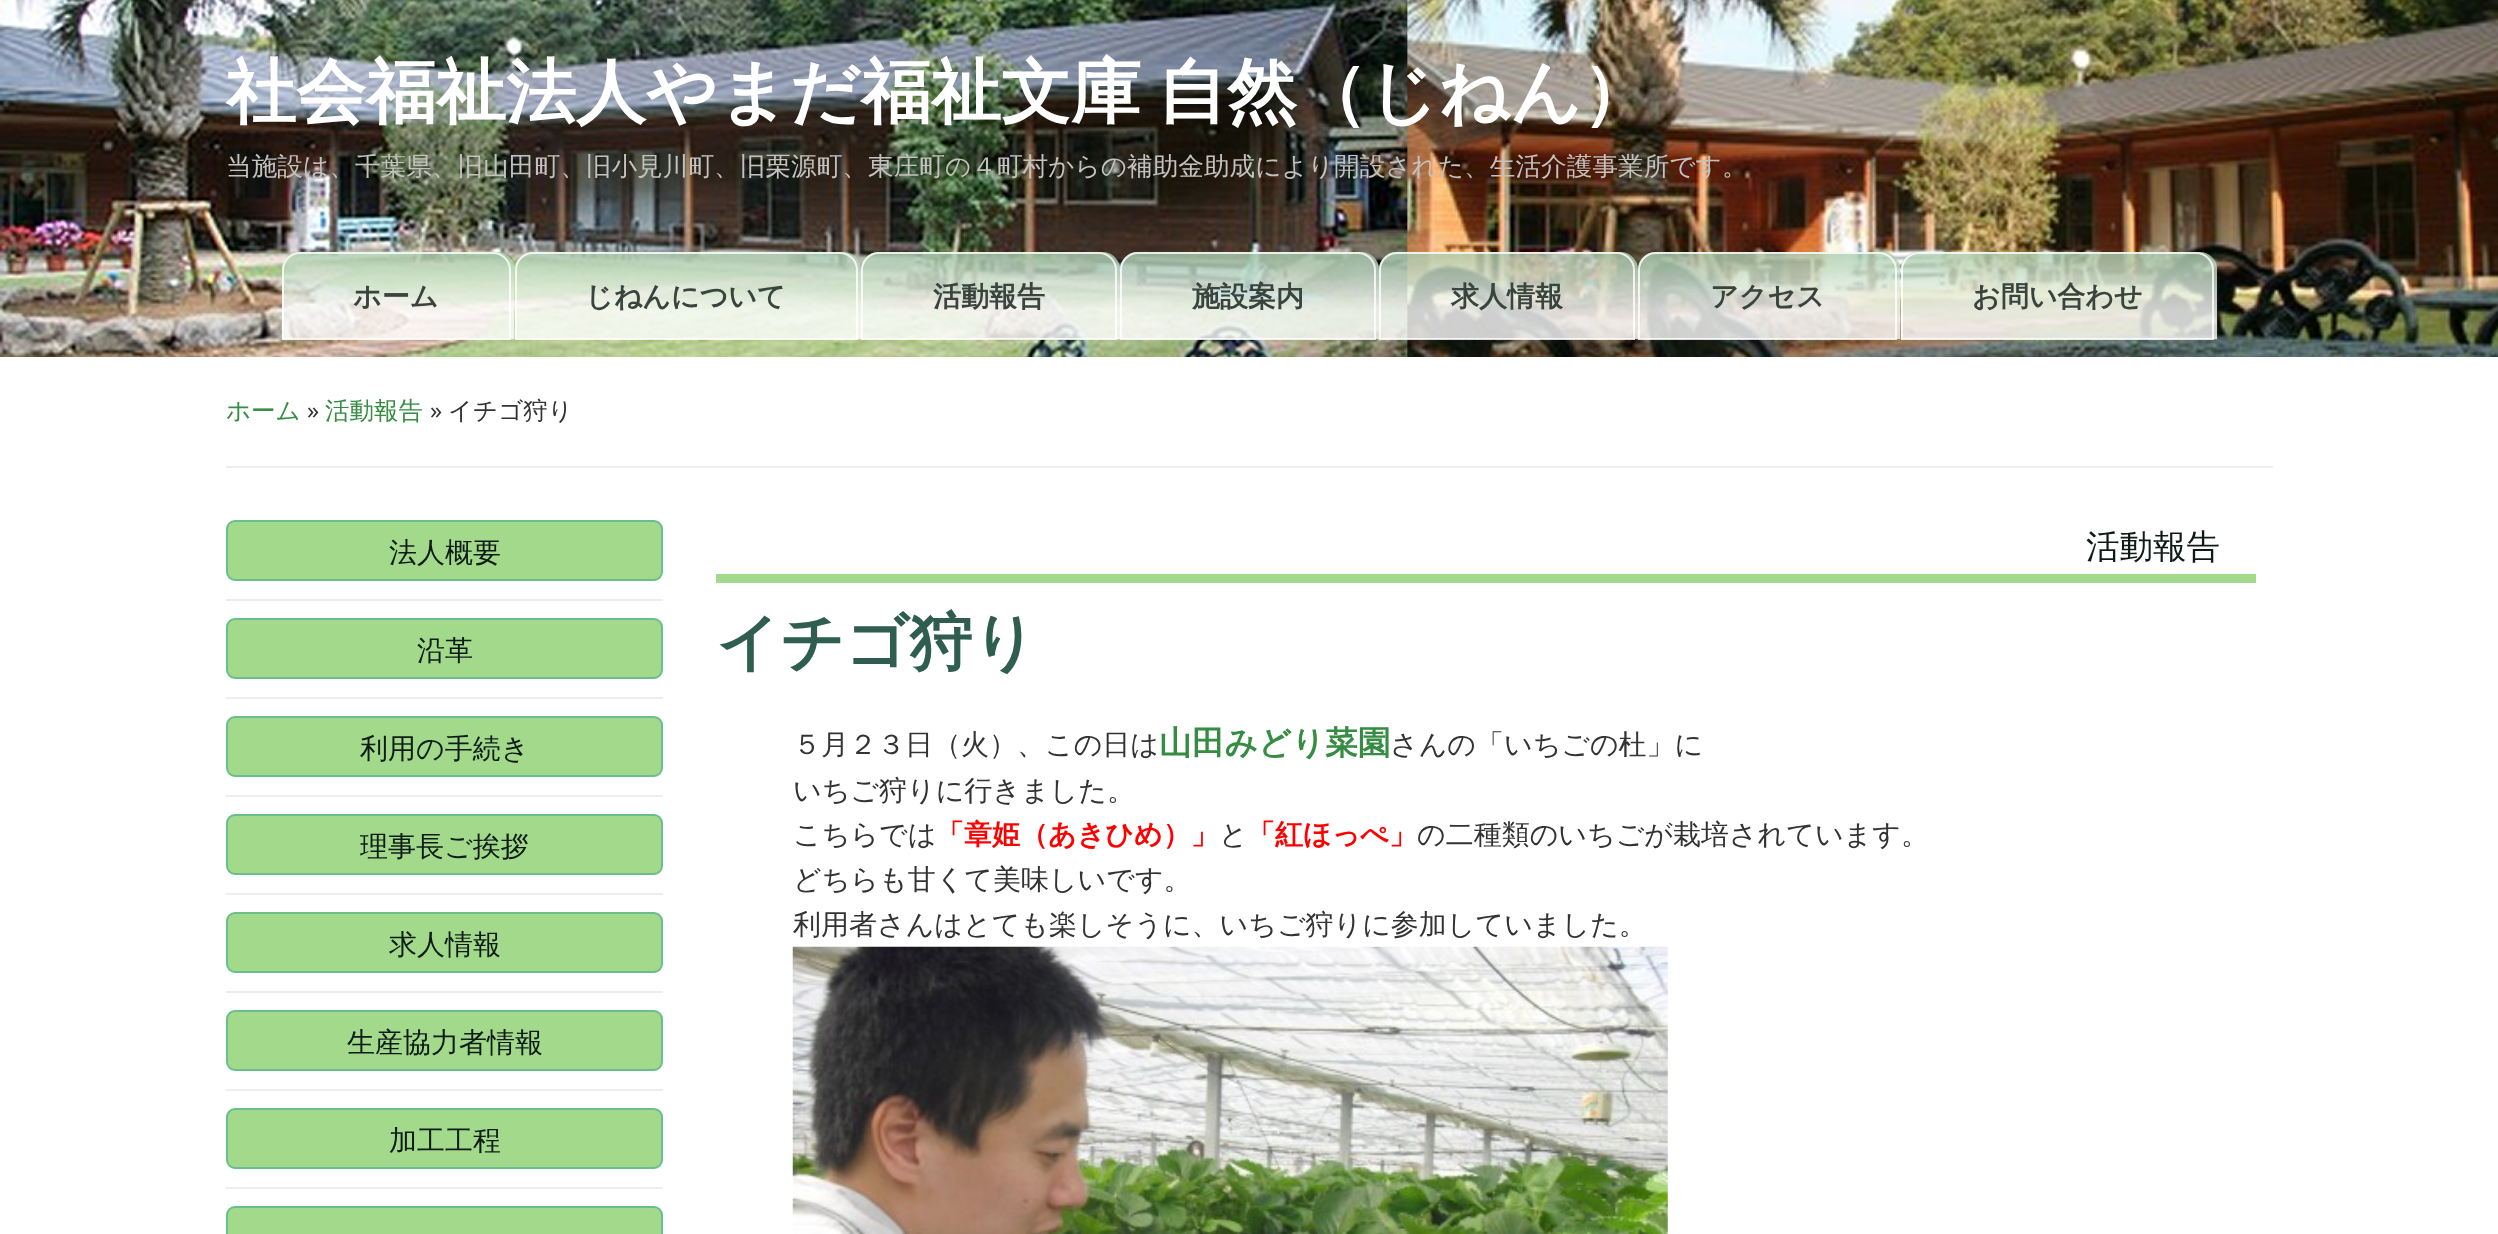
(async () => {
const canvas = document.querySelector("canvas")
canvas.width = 2498
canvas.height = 1234
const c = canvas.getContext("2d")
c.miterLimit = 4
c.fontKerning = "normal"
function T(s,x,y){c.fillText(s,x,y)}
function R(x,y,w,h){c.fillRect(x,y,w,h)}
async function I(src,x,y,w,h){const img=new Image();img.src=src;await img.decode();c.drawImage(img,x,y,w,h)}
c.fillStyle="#fff"
R(0,0,2498,1234)
await I("1.png",0,0,2498,357)
c.wordSpacing="-5px"
c.font="bold 70px WenQuanYi Zen Hei"
T("社会福祉法人やまだ福祉文庫 自然（じねん）",226,116)
c.wordSpacing="0px"
c.font="500 25.67px WenQuanYi Zen Hei"
c.fillStyle="#c4c2be"
T("当施設は、千葉県、旧山田町、旧小見川町、旧栗源町、東庄町の４町村からの補助金助成により開設された、生活介護事業所です。",226,175)
await I("2.png",281,252,234,88)
c.beginPath()
c.roundRect(283,253,227,86,[17,17,0,0])
c.strokeStyle="#ffffffcc"
c.lineWidth=2
c.stroke()
c.font="bold 28px WenQuanYi Zen Hei"
c.fillStyle="#39443f"
T("ホーム",353,306)
await I("3.png",514,252,347,88)
c.beginPath()
c.roundRect(516,253,341,86,[17,17,0,0])
c.stroke()
T("じねんについて",585,306)
await I("4.png",861,252,259,88)
c.beginPath()
c.roundRect(862,253,254,86,[17,17,0,0])
c.stroke()
T("活動報告",933,306)
await I("5.png",1120,252,259,88)
c.beginPath()
c.roundRect(1121,253,254,86,[17,17,0,0])
c.stroke()
T("施設案内",1192,306)
await I("6.png",1379,252,259,88)
c.beginPath()
c.roundRect(1380,253,254,86,[17,17,0,0])
c.stroke()
T("求人情報",1451,306)
await I("7.png",1638,252,263,88)
c.beginPath()
c.roundRect(1639,253,257,86,[17,17,0,0])
c.stroke()
T("アクセス",1710,306)
await I("8.png",1900,252,318,88)
c.beginPath()
c.roundRect(1902,253,311,86,[17,17,0,0])
c.stroke()
T("お問い合わせ",1972,306)
c.fillStyle="#eee"
R(226,466,2047,2)
c.font="500 24.5px WenQuanYi Zen Hei"
c.fillStyle="#358c42"
T("ホーム",226,419)
c.font="24.5px Open Sans"
c.fillStyle="#333"
T("»",307,419)
c.font="500 24.5px WenQuanYi Zen Hei"
c.fillStyle="#358c42"
T("活動報告",325,419)
c.font="24.5px Open Sans"
c.fillStyle="#333"
T("»",430,419)
c.font="500 24.5px WenQuanYi Zen Hei"
T("イチゴ狩り",448,419)
c.fillStyle="#eee"
R(226,599,437,2)
c.fillStyle="#a2d98a"
c.beginPath()
c.roundRect(227,521,435,59,8)
c.fill()
c.strokeStyle="#68be8d"
c.stroke()
c.font="500 28px WenQuanYi Zen Hei"
c.fillStyle="#0e1b17"
T("法人概要",389,562)
c.fillStyle="#eee"
R(226,697,437,2)
c.fillStyle="#a2d98a"
c.beginPath()
c.roundRect(227,619,435,59,8)
c.fill()
c.stroke()
c.fillStyle="#0e1b17"
T("沿革",417,660)
c.fillStyle="#eee"
R(226,795,437,2)
c.fillStyle="#a2d98a"
c.beginPath()
c.roundRect(227,717,435,59,8)
c.fill()
c.stroke()
c.fillStyle="#0e1b17"
T("利用の手続き",360,758)
c.fillStyle="#eee"
R(226,893,437,2)
c.fillStyle="#a2d98a"
c.beginPath()
c.roundRect(227,815,435,59,8)
c.fill()
c.stroke()
c.fillStyle="#0e1b17"
T("理事長ご挨拶",360,856)
c.fillStyle="#eee"
R(226,991,437,2)
c.fillStyle="#a2d98a"
c.beginPath()
c.roundRect(227,913,435,59,8)
c.fill()
c.stroke()
c.fillStyle="#0e1b17"
T("求人情報",389,954)
c.fillStyle="#eee"
R(226,1089,437,2)
c.fillStyle="#a2d98a"
c.beginPath()
c.roundRect(227,1011,435,59,8)
c.fill()
c.stroke()
c.fillStyle="#0e1b17"
T("生産協力者情報",347,1052)
c.fillStyle="#eee"
R(226,1187,437,2)
c.fillStyle="#a2d98a"
c.beginPath()
c.roundRect(227,1109,435,59,8)
c.fill()
c.stroke()
c.fillStyle="#0e1b17"
T("加工工程",389,1150)
c.fillStyle="#a2d98a"
c.beginPath()
c.roundRect(227,1207,435,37,8)
c.fill()
c.stroke()
R(716,574,1540,9)
c.font="500 33.5px WenQuanYi Zen Hei"
c.fillStyle="#0e1b17"
T("活動報告",2086,558)
c.font="bold 63px WenQuanYi Zen Hei"
c.fillStyle="#2f5d50"
T("イチゴ狩り",716,664)
c.font="500 28px WenQuanYi Zen Hei"
c.fillStyle="#333"
T("５月２３日（火）、この日は",793,754)
c.font="bold 32.75px WenQuanYi Zen Hei"
c.fillStyle="#358c42"
T("山田みどり菜園",1159,754)
c.font="500 28px WenQuanYi Zen Hei"
c.fillStyle="#333"
T("さんの「いちごの杜」に",1390,754)
T("いちご狩りに行きました。",793,800)
T("こちらでは",793,844)
c.font="bold 28px WenQuanYi Zen Hei"
c.fillStyle="#f00"
T("「章姫（あきひめ）」",936,844)
c.font="500 28px WenQuanYi Zen Hei"
c.fillStyle="#333"
T("と",1219,844)
c.font="bold 28px WenQuanYi Zen Hei"
c.fillStyle="#f00"
T("「紅ほっぺ」",1247,844)
c.font="500 28px WenQuanYi Zen Hei"
c.fillStyle="#333"
T("の二種類のいちごが栽培されています。",1417,844)
T("どちらも甘くて美味しいです。",793,889)
T("利用者さんはとても楽しそうに、いちご狩りに参加していました。",793,934)
await I("9.png",792,946,876,288)
})()
